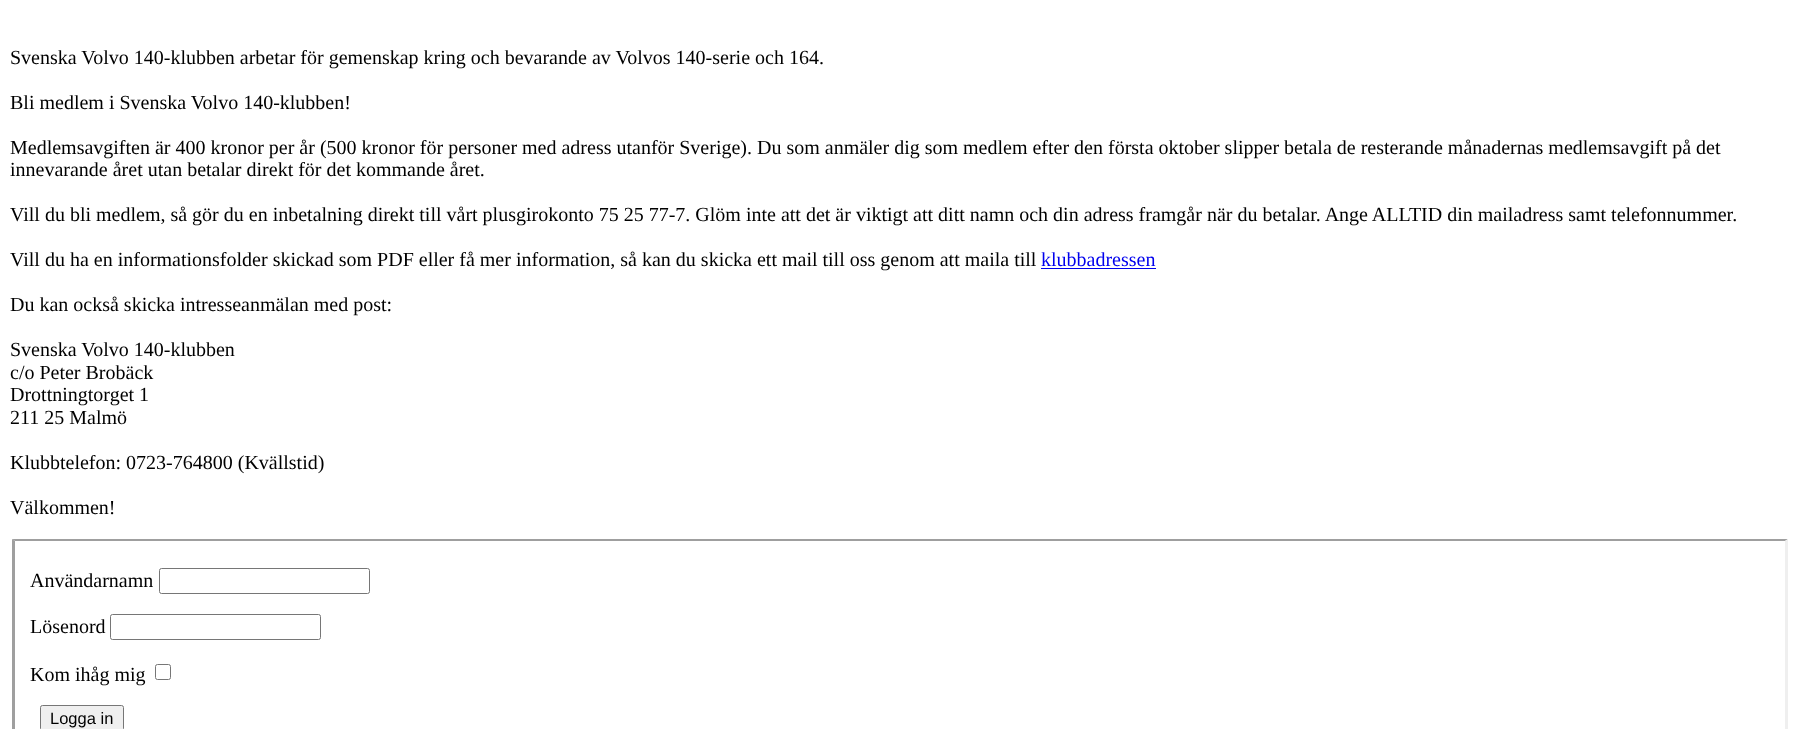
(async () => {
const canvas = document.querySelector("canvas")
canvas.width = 1800
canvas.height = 729
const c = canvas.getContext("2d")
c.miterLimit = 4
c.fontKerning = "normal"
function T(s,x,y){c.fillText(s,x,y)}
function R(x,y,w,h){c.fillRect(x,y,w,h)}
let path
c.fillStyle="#fff"
R(0,0,1800,729)
c.font="20px Liberation Serif"
c.fillStyle="#000"
T("Svenska Volvo 140-klubben arbetar för gemenskap kring och bevarande av Volvos 140-serie och 164.",10,64)
T("Bli medlem i Svenska Volvo 140-klubben!",10,109)
T("Medlemsavgiften är 400 kronor per år (500 kronor för personer med adress utanför Sverige). Du som anmäler dig som medlem efter den första oktober slipper betala de resterande månadernas medlemsavgift på det",10,154)
T("innevarande året utan betalar direkt för det kommande året.",10,176)
T("Vill du bli medlem, så gör du en inbetalning direkt till vårt plusgirokonto 75 25 77-7. Glöm inte att det är viktigt att ditt namn och din adress framgår när du betalar. Ange ALLTID din mailadress samt telefonnummer.",10,221)
T("Vill du ha en informationsfolder skickad som PDF eller få mer information, så kan du skicka ett mail till oss genom att maila till",10,266)
c.fillStyle="#00e"
T("klubbadressen",1041,266)
R(1041,268,115,1)
c.fillStyle="#000"
T("Du kan också skicka intresseanmälan med post:",10,311)
T("Svenska Volvo 140-klubben",10,356)
T("c/o Peter Brobäck",10,379)
T("Drottningtorget 1",10,401)
T("211 25 Malmö",10,424)
T("Klubbtelefon: 0723-764800 (Kvällstid)",10,469)
T("Välkommen!",10,514)
c.fillStyle="#9f9f9f"
path = new Path2D("M12 539h1776l-3 2h-1770z")
c.fill(path)
c.fillStyle="#efefef"
path = new Path2D("M1788 539v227l-3-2v-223z")
c.fill(path)
c.fillStyle="#9f9f9f"
path = new Path2D("M12 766v-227l3 2v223z")
c.fill(path)
c.fillStyle="#000"
T("Användarnamn",30,587)
c.beginPath()
c.roundRect(159.5,568.5,210,25,2)
c.strokeStyle="#767676"
c.stroke()
T("Lösenord",30,633)
c.beginPath()
c.roundRect(110.5,614.5,210,25,2)
c.stroke()
T("Kom ihåg mig",30,681)
c.beginPath()
c.roundRect(155.5,664.5,15,15,2)
c.stroke()
c.fillStyle="#efefef"
c.beginPath()
c.roundRect(40.5,705.5,83,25,2)
c.fill()
c.stroke()
c.font="16.5px Liberation Sans"
c.fillStyle="#000"
T("Logga in",50,724)
})()
